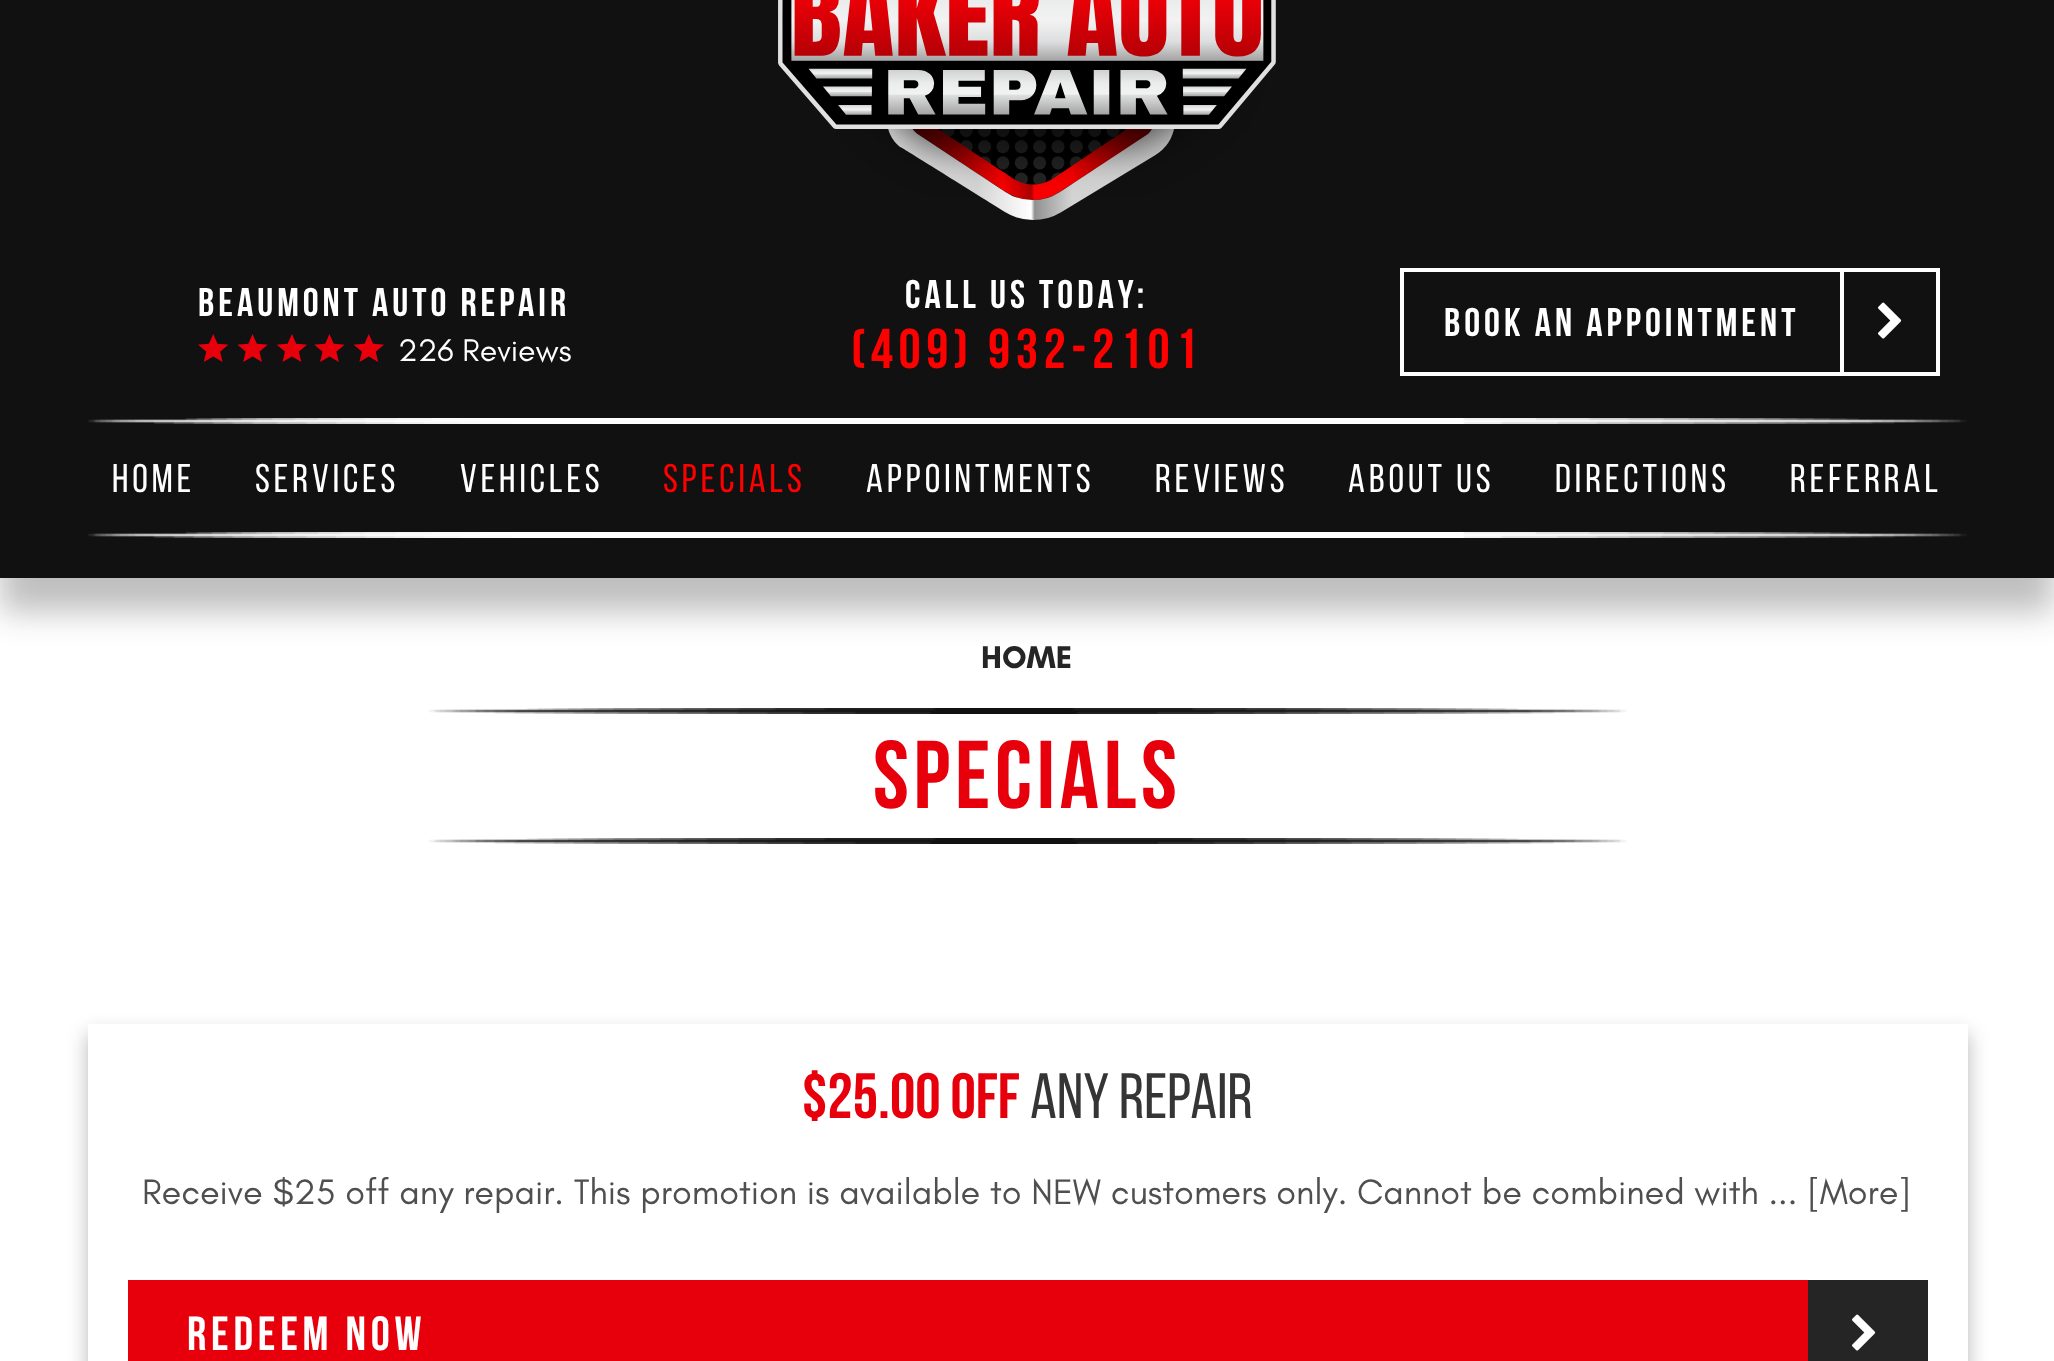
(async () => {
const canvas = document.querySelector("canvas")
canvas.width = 2054
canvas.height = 1361
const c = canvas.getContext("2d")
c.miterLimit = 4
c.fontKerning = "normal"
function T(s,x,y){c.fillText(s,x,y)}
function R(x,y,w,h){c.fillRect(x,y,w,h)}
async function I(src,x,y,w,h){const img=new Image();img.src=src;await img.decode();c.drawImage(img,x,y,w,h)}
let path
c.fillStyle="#fff"
R(0,0,2054,1361)
c.fillStyle="#18181847"
c.filter="blur(16px)"
c.beginPath()
c.rect(0,-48,2054,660)
c.fill()
c.filter="none"
c.fillStyle="#111"
R(0,0,2054,578)
await I("1.png",778,0,498,220)
c.letterSpacing="4px"
c.font="bold 40px Bebas Neue"
c.fillStyle="#fff"
T("BEAUMONT AUTO REPAIR",198,316)
await I("2.png",198,334,186,28)
c.letterSpacing="0px"
c.font="32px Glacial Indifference"
T("226 Reviews",398,361)
c.letterSpacing="4px"
c.font="bold 40px Bebas Neue"
T("CALL US TODAY:",905,308)
c.letterSpacing="5.6px"
c.font="bold 56px Bebas Neue"
c.fillStyle="#f00"
T("(409) 932-2101",851,368)
c.strokeStyle="#fff"
c.lineWidth=4
c.strokeRect(1402,270,536,104)
c.letterSpacing="4px"
c.font="bold 40px Bebas Neue"
c.fillStyle="#fff"
T("BOOK AN APPOINTMENT",1444,336)
R(1840,268,4,108)
await I("3.png",1878,302,24,37)
await I("4.png",88,418,1879,6)
c.font="40px Bebas Neue"
T("HOME",112,492)
T("SERVICES",255,492)
T("VEHICLES",460,492)
c.fillStyle="#f00"
T("SPECIALS",663,492)
c.fillStyle="#fff"
T("APPOINTMENTS",866,492)
T("REVIEWS",1155,492)
T("ABOUT US",1348,492)
T("DIRECTIONS",1555,492)
T("REFERRAL",1790,492)
await I("4.png",88,532,1879,6)
c.letterSpacing="0px"
c.font="bold 32px Glacial Indifference"
c.fillStyle="#252525"
T("HOME",981,668)
await I("5.png",428,708,1199,6)
c.letterSpacing="4.75px"
c.font="bold 96px Bebas Neue"
c.fillStyle="#e7000c"
T("SPECIALS",873,808)
await I("5.png",428,838,1199,6)
c.save()
path = new Path2D("M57 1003h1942v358h-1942zm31 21h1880v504h-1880z")
c.clip(path,"evenodd")
c.fillStyle="#1111114d"
c.filter="blur(10px)"
c.beginPath()
c.rect(88,1034,1880,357)
c.fill()
c.filter="none"
c.restore()
c.letterSpacing="0px"
c.font="bold 64px Bebas Neue"
T("$25.00 OFF",802,1118)
c.font="64px Bebas Neue"
c.fillStyle="#353535"
T("ANY REPAIR",1030,1118)
c.font="36px Glacial Indifference"
c.fillStyle="#4f4f4f"
T("Receive $25 off any repair. This promotion is available to NEW customers only. Cannot be combined with ... [More]",142,1204)
c.fillStyle="#e7000c"
R(128,1280,1680,81)
c.letterSpacing="4.75px"
c.font="bold 48px Bebas Neue"
c.fillStyle="#fff"
T("REDEEM NOW",187,1350)
c.fillStyle="#252525"
R(1808,1280,120,81)
await I("6.png",1852,1314,24,37)
})()
